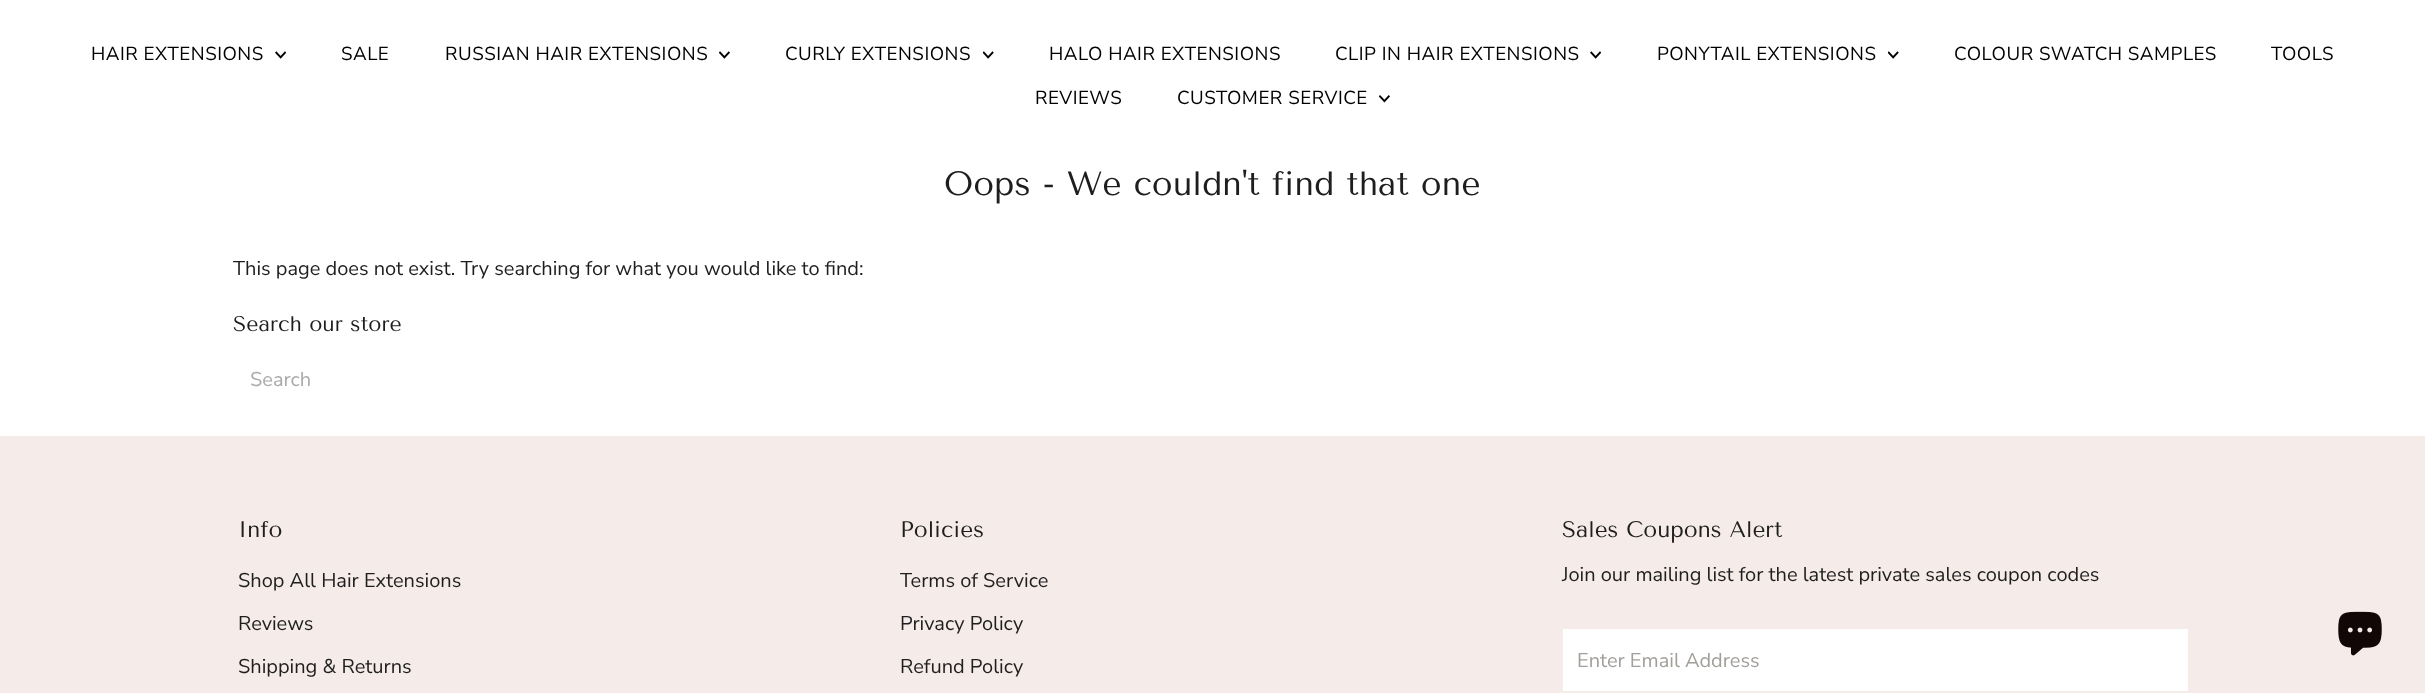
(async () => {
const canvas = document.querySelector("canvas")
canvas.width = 2425
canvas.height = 693
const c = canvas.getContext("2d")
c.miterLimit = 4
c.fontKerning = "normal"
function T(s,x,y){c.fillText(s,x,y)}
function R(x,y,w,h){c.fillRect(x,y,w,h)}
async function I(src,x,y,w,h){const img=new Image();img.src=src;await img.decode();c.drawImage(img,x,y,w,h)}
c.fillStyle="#fff"
R(0,0,2425,693)
c.letterSpacing="0.5px"
c.font="18.75px Nunito Sans"
c.fillStyle="#000"
T("HAIR EXTENSIONS",91,60)
await I("1.png",275,51,11,8)
T("SALE",341,60)
T("RUSSIAN HAIR EXTENSIONS",445,60)
await I("2.png",719,51,11,8)
T("CURLY EXTENSIONS",785,60)
await I("3.png",983,51,11,8)
T("HALO HAIR EXTENSIONS",1049,60)
T("CLIP IN HAIR EXTENSIONS",1335,60)
await I("1.png",1590,51,11,8)
T("PONYTAIL EXTENSIONS",1657,60)
await I("3.png",1888,51,11,8)
T("COLOUR SWATCH SAMPLES",1954,60)
T("TOOLS",2271,60)
T("REVIEWS",1035,104)
T("CUSTOMER SERVICE",1177,104)
await I("4.png",1379,95,11,8)
c.letterSpacing="0px"
c.font="33.75px Tenor Sans"
c.fillStyle="#1e1e1e"
T("Oops - We couldn't find that one",944,195)
c.font="20px Nunito Sans"
T("This page does not exist. Try searching for what you would like to find:",233,275)
c.font="21.25px Tenor Sans"
T("Search our store",233,331)
c.font="20px Nunito Sans"
c.fillStyle="#aaa"
T("Search",250,386)
c.fillStyle="#f5ece9"
R(0,436,2425,257)
c.font="22.5px Tenor Sans"
c.fillStyle="#1e1e1e"
T("Info",238,537)
c.font="20px Nunito Sans"
T("Shop All Hair Extensions",238,587)
T("Reviews",238,630)
T("Shipping & Returns",238,673)
c.font="22.5px Tenor Sans"
T("Policies",900,537)
c.font="20px Nunito Sans"
T("Terms of Service",900,587)
T("Privacy Policy",900,630)
T("Refund Policy",900,673)
c.font="22.5px Tenor Sans"
T("Sales Coupons Alert",1562,537)
c.font="20px Nunito Sans"
T("Join our mailing list for the latest private sales coupon codes",1562,581)
c.fillStyle="#fff"
R(1563,629,625,62)
c.fillStyle="#a29f9b"
T("Enter Email Address",1577,667)
await I("5.png",2338,611,44,45)
})()
